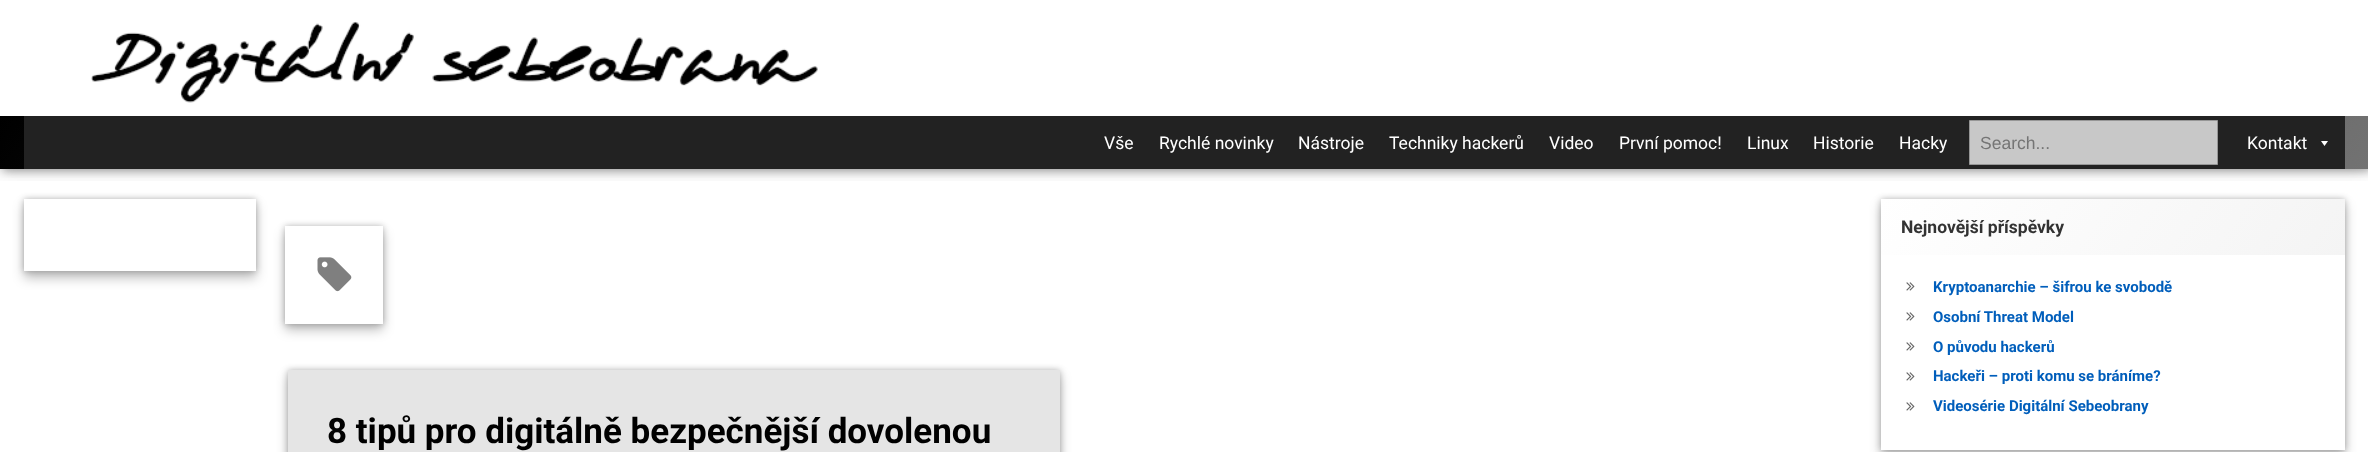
(async () => {
const canvas = document.querySelector("canvas")
canvas.width = 2368
canvas.height = 452
const c = canvas.getContext("2d")
c.miterLimit = 4
c.fontKerning = "normal"
function T(s,x,y){c.fillText(s,x,y)}
function R(x,y,w,h){c.fillRect(x,y,w,h)}
async function I(src,x,y,w,h){const img=new Image();img.src=src;await img.decode();c.drawImage(img,x,y,w,h)}
let gradient, path
c.fillStyle="#fff"
R(0,0,2368,452)
c.save()
c.beginPath()
c.rect(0,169,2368,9)
c.clip()
c.fillStyle="#0000004d"
c.filter="blur(4.5px)"
c.beginPath()
c.rect(3,3,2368,168)
c.fill()
c.filter="none"
c.restore()
c.save()
c.beginPath()
c.rect(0,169,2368,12)
c.clip()
c.fillStyle="#00000033"
c.filter="blur(9.5px)"
c.beginPath()
c.rect(0,0,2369,169)
c.fill()
c.filter="none"
c.restore()
await I("1.png",91,21,727,82)
gradient = c.createLinearGradient(377,-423,1991,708)
gradient.addColorStop(0,"#000")
gradient.addColorStop(1,"#727272")
c.fillStyle = gradient
R(0,116,2368,53)
c.fillStyle="#222"
R(24,116,2321,53)
c.font="17.5px Roboto"
c.fillStyle="#fff"
T("Vše",1104,149)
T("Rychlé novinky",1159,149)
T("Nástroje",1298,149)
T("Techniky hackerů",1389,149)
T("Video",1549,149)
T("První pomoc!",1619,149)
T("Linux",1747,149)
T("Historie",1813,149)
T("Hacky",1899,149)
c.fillStyle="#c8c8c8"
c.beginPath()
c.rect(1969.5,120.5,248,44)
c.fill()
c.strokeStyle="#969696"
c.stroke()
c.font="17.5px Liberation Sans"
c.fillStyle="#757575"
T("Search...",1980,149)
c.font="17.5px Roboto"
c.fillStyle="#fff"
T("Kontakt",2247,149)
path = new Path2D("M2328 141l-3.5 5l-3.5-5z")
c.fill(path)
c.save()
path = new Path2D("M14 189h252v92h-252zm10 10h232v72h-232z")
c.clip(path,"evenodd")
c.fillStyle="#00000040"
c.filter="blur(3px)"
c.beginPath()
c.rect(24,199,232,72)
c.fill()
c.filter="none"
c.restore()
c.save()
path = new Path2D("M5 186h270v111h-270zm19 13h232v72h-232z")
c.clip(path,"evenodd")
c.fillStyle="#00000040"
c.filter="blur(6px)"
c.beginPath()
c.rect(24,205,232,73)
c.fill()
c.filter="none"
c.restore()
c.save()
path = new Path2D("M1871 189h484v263h-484zm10 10h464v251h-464z")
c.clip(path,"evenodd")
c.fillStyle="#00000040"
c.filter="blur(3px)"
c.beginPath()
c.rect(1881,199,464,251)
c.fill()
c.filter="none"
c.restore()
c.save()
path = new Path2D("M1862 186h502v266h-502zm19 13h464v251h-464z")
c.clip(path,"evenodd")
c.fillStyle="#00000040"
c.filter="blur(6px)"
c.beginPath()
c.rect(1881,205,464,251)
c.fill()
c.filter="none"
c.restore()
c.fillStyle="#fffffff2"
R(1881,255,1,195)
gradient = c.createLinearGradient(1944,109,2282,345)
gradient.addColorStop(0,"#fff")
gradient.addColorStop(1,"#f4f4f4")
c.fillStyle = gradient
R(1881,199,464,56)
c.font="bold 17.5px Roboto"
c.fillStyle="#333"
T("Nejnovější příspěvky",1901,233)
await I("2.png",1906,282,9,9)
c.font="bold 15px Roboto"
c.fillStyle="#005ebb"
T("Kryptoanarchie – šifrou ke svobodě",1933,292)
await I("2.png",1906,312,9,9)
T("Osobní Threat Model",1933,322)
await I("2.png",1906,342,9,9)
T("O původu hackerů",1933,352)
await I("2.png",1906,372,9,9)
T("Hackeři – proti komu se bráníme?",1933,381)
await I("2.png",1906,402,9,9)
T("Videosérie Digitální Sebeobrany",1933,411)
c.save()
path = new Path2D("M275 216h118v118h-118zm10 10h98v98h-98z")
c.clip(path,"evenodd")
c.fillStyle="#00000040"
c.filter="blur(3px)"
c.beginPath()
c.rect(285,226,98,98)
c.fill()
c.filter="none"
c.restore()
c.save()
path = new Path2D("M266 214h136v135h-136zm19 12h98v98h-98z")
c.clip(path,"evenodd")
c.fillStyle="#00000040"
c.filter="blur(6px)"
c.beginPath()
c.rect(285,233,98,97)
c.fill()
c.filter="none"
c.restore()
gradient = c.createLinearGradient(334,324,334,226)
gradient.addColorStop(0,"#ffffff40")
gradient.addColorStop(1,"#ffffff80")
c.fillStyle = gradient
R(285,226,98,98)
await I("3.png",317,257,35,35)
c.fillStyle="#00000040"
c.filter="blur(3px)"
c.beginPath()
c.rect(288,370,772,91)
c.fill()
c.filter="none"
c.filter="blur(6px)"
c.beginPath()
c.rect(288,376,772,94)
c.fill()
c.filter="none"
c.fillStyle="#e5e5e5"
R(288,370,772,82)
c.font="bold 35px Roboto"
c.fillStyle="#000"
T("8 tipů pro digitálně bezpečnější dovolenou",327,443)
})()
